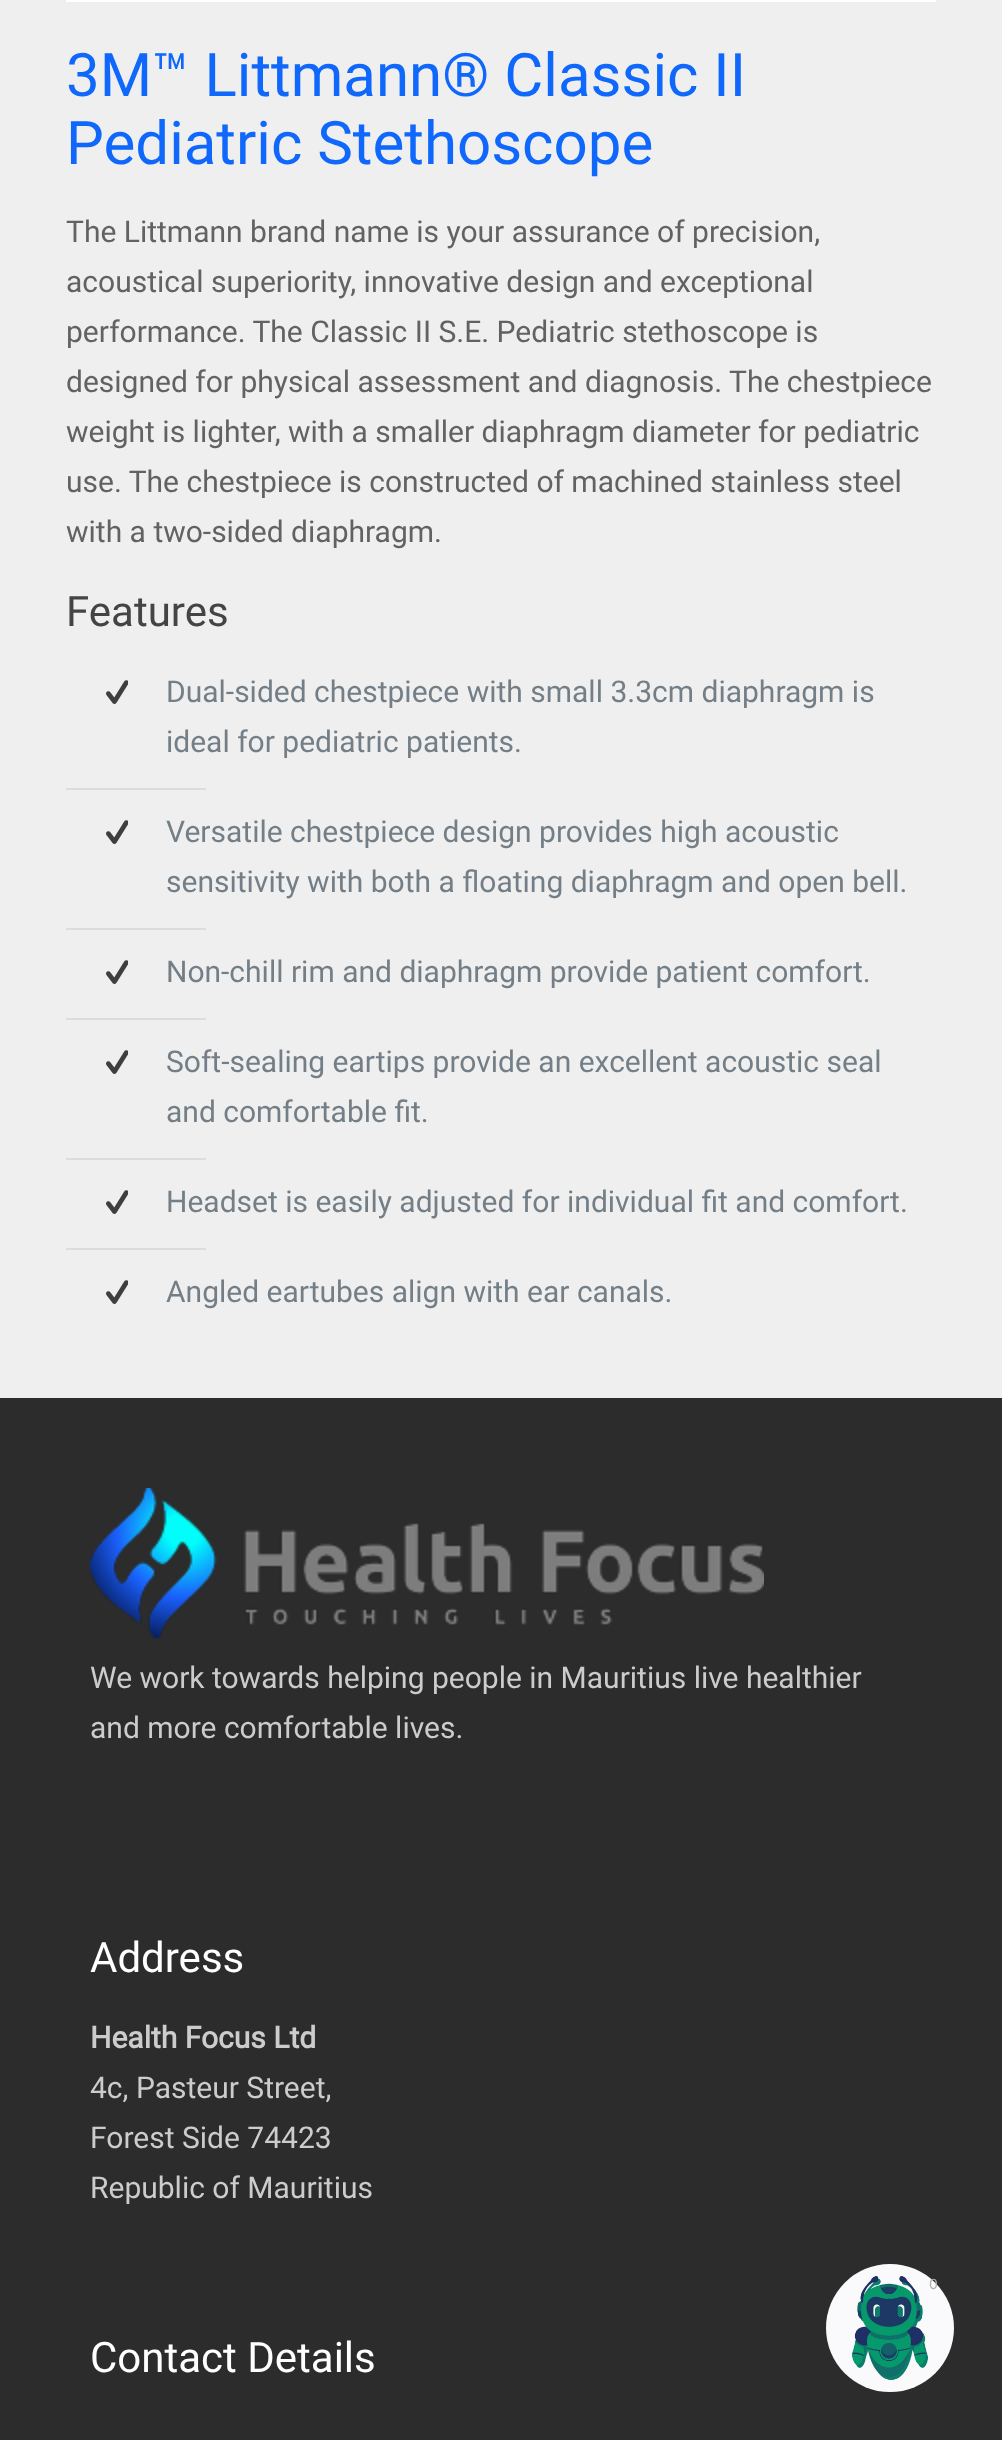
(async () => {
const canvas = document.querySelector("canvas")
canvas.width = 1002
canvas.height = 2440
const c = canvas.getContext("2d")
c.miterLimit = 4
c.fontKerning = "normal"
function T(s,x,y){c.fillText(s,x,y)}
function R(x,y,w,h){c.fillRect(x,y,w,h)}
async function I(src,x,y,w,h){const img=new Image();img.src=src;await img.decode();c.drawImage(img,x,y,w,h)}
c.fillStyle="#efefef"
R(0,0,1002,2440)
c.fillStyle="#fff"
R(66,0,870,2)
c.font="60px Roboto"
c.fillStyle="#0f68fb"
T("3M™ Littmann® Classic II",66,96)
T("Pediatric Stethoscope",66,164)
c.font="30px Roboto"
c.fillStyle="#626262"
T("The Littmann brand name is your assurance of precision,",66,242)
T("acoustical superiority, innovative design and exceptional",66,292)
T("performance. The Classic II S.E. Pediatric stethoscope is",66,342)
T("designed for physical assessment and diagnosis. The chestpiece",66,392)
T("weight is lighter, with a smaller diaphragm diameter for pediatric",66,442)
T("use. The chestpiece is constructed of machined stainless steel",66,492)
T("with a two-sided diaphragm.",66,542)
c.font="42px Roboto"
c.fillStyle="#444"
T("Features",66,626)
await I("1.png",106,680,22,24)
c.font="30px Roboto"
c.fillStyle="#737e86"
T("Dual-sided chestpiece with small 3.3cm diaphragm is",166,702)
T("ideal for pediatric patients.",166,752)
c.fillStyle="#dcdcdc"
R(66,788,140,2)
await I("1.png",106,820,22,24)
c.fillStyle="#737e86"
T("Versatile chestpiece design provides high acoustic",166,842)
T("sensitivity with both a floating diaphragm and open bell.",166,892)
c.fillStyle="#dcdcdc"
R(66,928,140,2)
await I("1.png",106,960,22,24)
c.fillStyle="#737e86"
T("Non-chill rim and diaphragm provide patient comfort.",166,982)
c.fillStyle="#dcdcdc"
R(66,1018,140,2)
await I("1.png",106,1050,22,24)
c.fillStyle="#737e86"
T("Soft-sealing eartips provide an excellent acoustic seal",166,1072)
T("and comfortable fit.",166,1122)
c.fillStyle="#dcdcdc"
R(66,1158,140,2)
await I("1.png",106,1190,22,24)
c.fillStyle="#737e86"
T("Headset is easily adjusted for individual fit and comfort.",166,1212)
c.fillStyle="#dcdcdc"
R(66,1248,140,2)
await I("1.png",106,1280,22,24)
c.fillStyle="#737e86"
T("Angled eartubes align with ear canals.",166,1302)
c.fillStyle="#2c2c2c"
R(0,1398,1002,1042)
await I("2.png",90,1488,674,150)
c.fillStyle="#ccc"
T("We work towards helping people in Mauritius live healthier",90,1688)
T("and more comfortable lives.",90,1738)
c.font="42px Roboto"
c.fillStyle="#fff"
T("Address",90,1972)
c.font="bold 30px Roboto"
c.fillStyle="#ccc"
T("Health Focus Ltd",90,2048)
c.font="30px Roboto"
T("4c, Pasteur Street,",90,2098)
T("Forest Side 74423",90,2148)
T("Republic of Mauritius",90,2198)
c.font="42px Roboto"
c.fillStyle="#fff"
T("Contact Details",90,2372)
await I("3.png",826,2264,128,128)
c.font="14px Inter"
c.fillStyle="#aeaeb0"
T("0",929,2289)
})()
